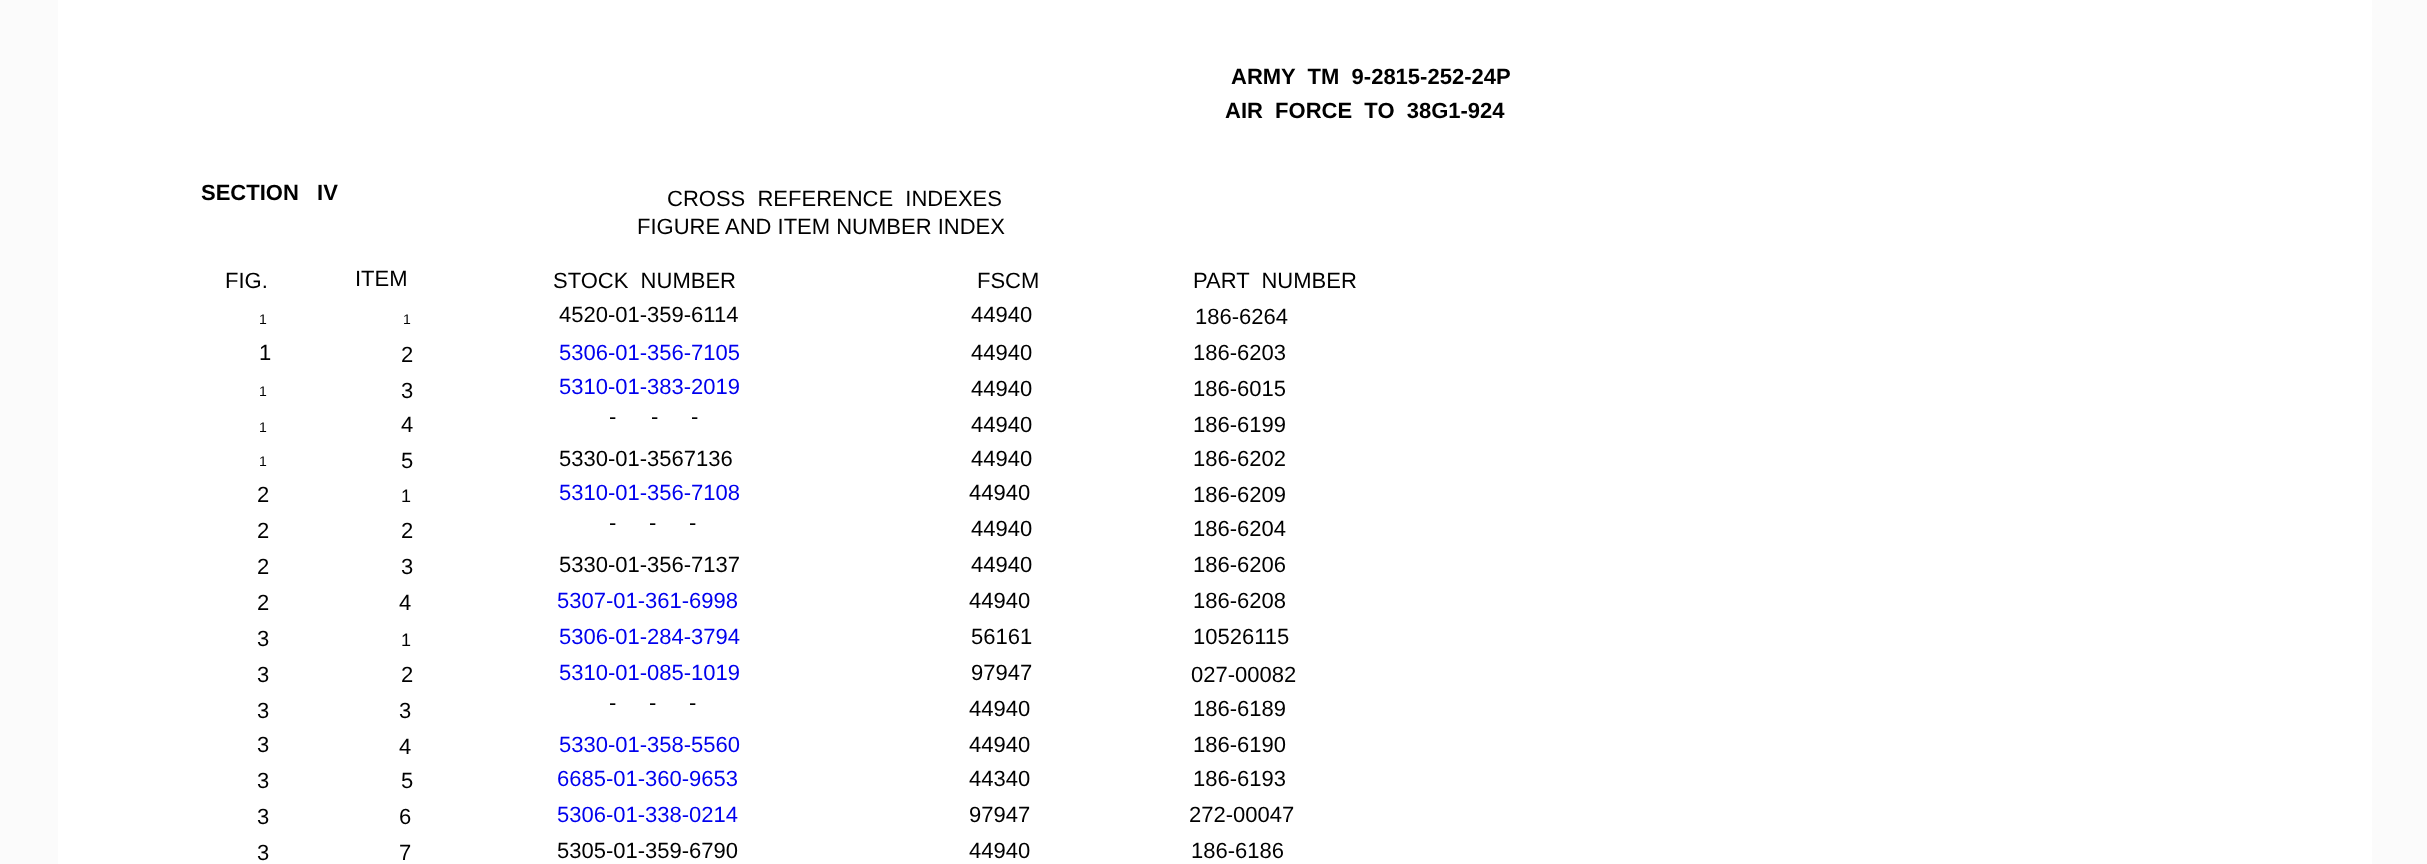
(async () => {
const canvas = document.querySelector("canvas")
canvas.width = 2427
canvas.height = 864
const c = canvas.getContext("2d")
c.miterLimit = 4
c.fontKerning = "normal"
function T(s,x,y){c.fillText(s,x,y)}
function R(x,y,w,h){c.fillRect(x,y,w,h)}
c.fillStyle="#fbfbfb"
R(0,0,2427,864)
c.fillStyle="#fff"
R(58,0,2314,864)
c.font="bold 22px Liberation Sans"
c.fillStyle="#000"
T("ARMY  TM  9-2815-252-24P",1231,84)
T("AIR  FORCE  TO  38G1-924",1225,118)
T("SECTION   IV",201,200)
c.font="22px Liberation Sans"
T("CROSS  REFERENCE  INDEXES",667,206)
T("FIGURE AND ITEM NUMBER INDEX",637,234)
T("FIG.",225,288)
T("ITEM",355,286)
T("STOCK  NUMBER",553,288)
T("FSCM",977,288)
T("PART  NUMBER",1193,288)
c.font="14px Liberation Sans"
T("1",259,324)
T("1",403,324)
c.font="22px Liberation Sans"
T("4520-01-359-6114",559,322)
T("44940",971,322)
T("186-6264",1195,324)
T("1",259,360)
T("2",401,362)
c.fillStyle="#00e"
T("5306-01-356-7105",559,360)
c.fillStyle="#000"
T("44940",971,360)
T("186-6203",1193,360)
c.font="14px Liberation Sans"
T("1",259,396)
c.font="22px Liberation Sans"
T("3",401,398)
c.fillStyle="#00e"
T("5310-01-383-2019",559,394)
c.fillStyle="#000"
T("44940",971,396)
T("186-6015",1193,396)
T("4",401,432)
T("-",609,424)
T("-",651,424)
T("-",691,424)
T("44940",971,432)
T("186-6199",1193,432)
c.font="14px Liberation Sans"
T("1",259,432)
T("1",259,466)
c.font="22px Liberation Sans"
T("5",401,468)
T("5330-01-3567136",559,466)
T("44940",971,466)
T("186-6202",1193,466)
T("2",257,502)
c.font="18px Liberation Sans"
T("1",401,502)
c.font="22px Liberation Sans"
c.fillStyle="#00e"
T("5310-01-356-7108",559,500)
c.fillStyle="#000"
T("44940",969,500)
T("186-6209",1193,502)
T("2",257,538)
T("2",401,538)
T("-",609,530)
T("-",649,530)
T("-",689,530)
T("44940",971,536)
T("186-6204",1193,536)
T("2",257,574)
T("3",401,574)
T("5330-01-356-7137",559,572)
T("44940",971,572)
T("186-6206",1193,572)
T("2",257,610)
T("4",399,610)
c.fillStyle="#00e"
T("5307-01-361-6998",557,608)
c.fillStyle="#000"
T("44940",969,608)
T("186-6208",1193,608)
T("3",257,646)
c.font="18px Liberation Sans"
T("1",401,646)
c.font="22px Liberation Sans"
c.fillStyle="#00e"
T("5306-01-284-3794",559,644)
c.fillStyle="#000"
T("56161",971,644)
T("10526115",1193,644)
T("3",257,682)
T("2",401,682)
c.fillStyle="#00e"
T("5310-01-085-1019",559,680)
c.fillStyle="#000"
T("97947",971,680)
T("027-00082",1191,682)
T("3",257,718)
T("3",399,718)
T("-",609,710)
T("-",649,710)
T("-",689,710)
T("44940",969,716)
T("186-6189",1193,716)
T("3",257,752)
T("4",399,754)
c.fillStyle="#00e"
T("5330-01-358-5560",559,752)
c.fillStyle="#000"
T("44940",969,752)
T("186-6190",1193,752)
T("3",257,788)
T("5",401,788)
c.fillStyle="#00e"
T("6685-01-360-9653",557,786)
c.fillStyle="#000"
T("44340",969,786)
T("186-6193",1193,786)
T("3",257,824)
T("6",399,824)
c.fillStyle="#00e"
T("5306-01-338-0214",557,822)
c.fillStyle="#000"
T("97947",969,822)
T("272-00047",1189,822)
T("3",257,860)
T("7",399,860)
T("5305-01-359-6790",557,858)
T("44940",969,858)
T("186-6186",1191,858)
})()
